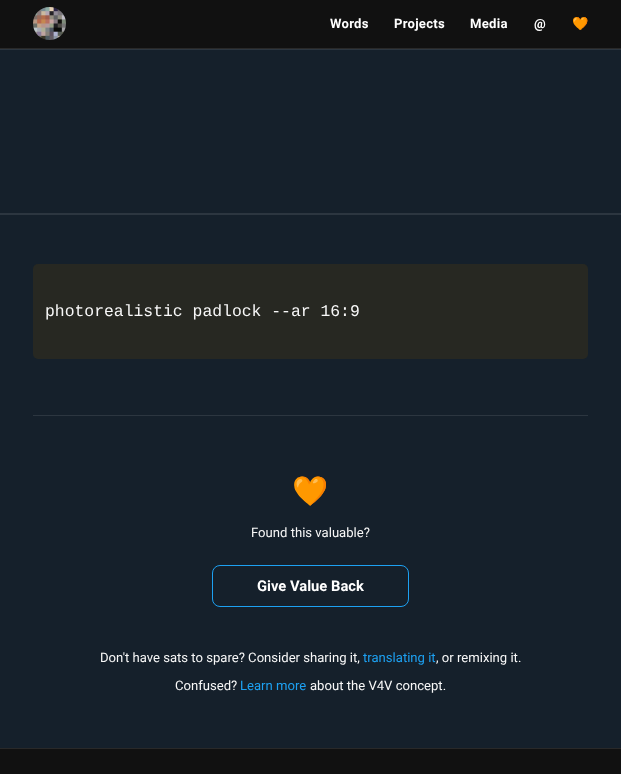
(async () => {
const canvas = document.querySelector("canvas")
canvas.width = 621
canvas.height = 774
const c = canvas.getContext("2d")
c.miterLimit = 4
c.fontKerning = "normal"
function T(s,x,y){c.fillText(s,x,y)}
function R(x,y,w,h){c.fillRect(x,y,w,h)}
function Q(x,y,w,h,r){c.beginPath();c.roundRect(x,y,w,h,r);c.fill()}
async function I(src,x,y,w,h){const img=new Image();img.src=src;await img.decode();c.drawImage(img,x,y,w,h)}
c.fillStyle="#15202b"
R(0,0,621,774)
c.fillStyle="#ffffff1a"
c.filter="blur(0.5px)"
c.beginPath()
c.rect(0,1,621,49)
c.fill()
c.filter="none"
c.fillStyle="#111"
R(0,0,621,48)
c.fillStyle="#292929"
R(0,48,621,1)
await I("1.png",33,7,33,33)
c.letterSpacing="0.25px"
c.font="bold 13.1px Roboto"
c.fillStyle="#fff"
T("Words",330,28)
T("Projects",394,28)
T("Media",470,28)
T("@",534,28)
c.font="bold 13.1px Noto Color Emoji"
T("🧡",572,28)
c.fillStyle="#2c3640"
R(0,213,621,2)
c.fillStyle="#272822"
Q(33,264,555,95,5)
c.letterSpacing="0px"
c.font="16.4px Liberation Mono"
c.fillStyle="#f8f8f8"
T("photorealistic padlock --ar 16:9",45,316)
c.fillStyle="#2c3640"
R(33,415,555,1)
c.font="bold 29px Noto Color Emoji"
c.fillStyle="#1da1f2"
T("🧡",292,501)
c.font="13.1px Roboto"
c.fillStyle="#f8f8f8"
T("Found this valuable?",251,537)
c.beginPath()
c.roundRect(212.5,565.5,196,41,7.5)
c.strokeStyle="#1da1f2"
c.stroke()
c.font="bold 14.75px Roboto"
c.fillStyle="#fff"
T("Give Value Back",257,591)
c.font="13.1px Roboto"
c.fillStyle="#f8f8f8"
T("Don't have sats to spare? Consider sharing it,",100,662)
c.fillStyle="#1da1f2"
T("translating it",363,662)
c.fillStyle="#f8f8f8"
T(", or remixing it.",436,662)
T("Confused?",175,690)
c.fillStyle="#1da1f2"
T("Learn more",240,690)
c.fillStyle="#f8f8f8"
T("about the V4V concept.",310,690)
c.fillStyle="#111"
R(0,749,621,25)
c.fillStyle="#292929"
R(0,748,621,1)
})()
